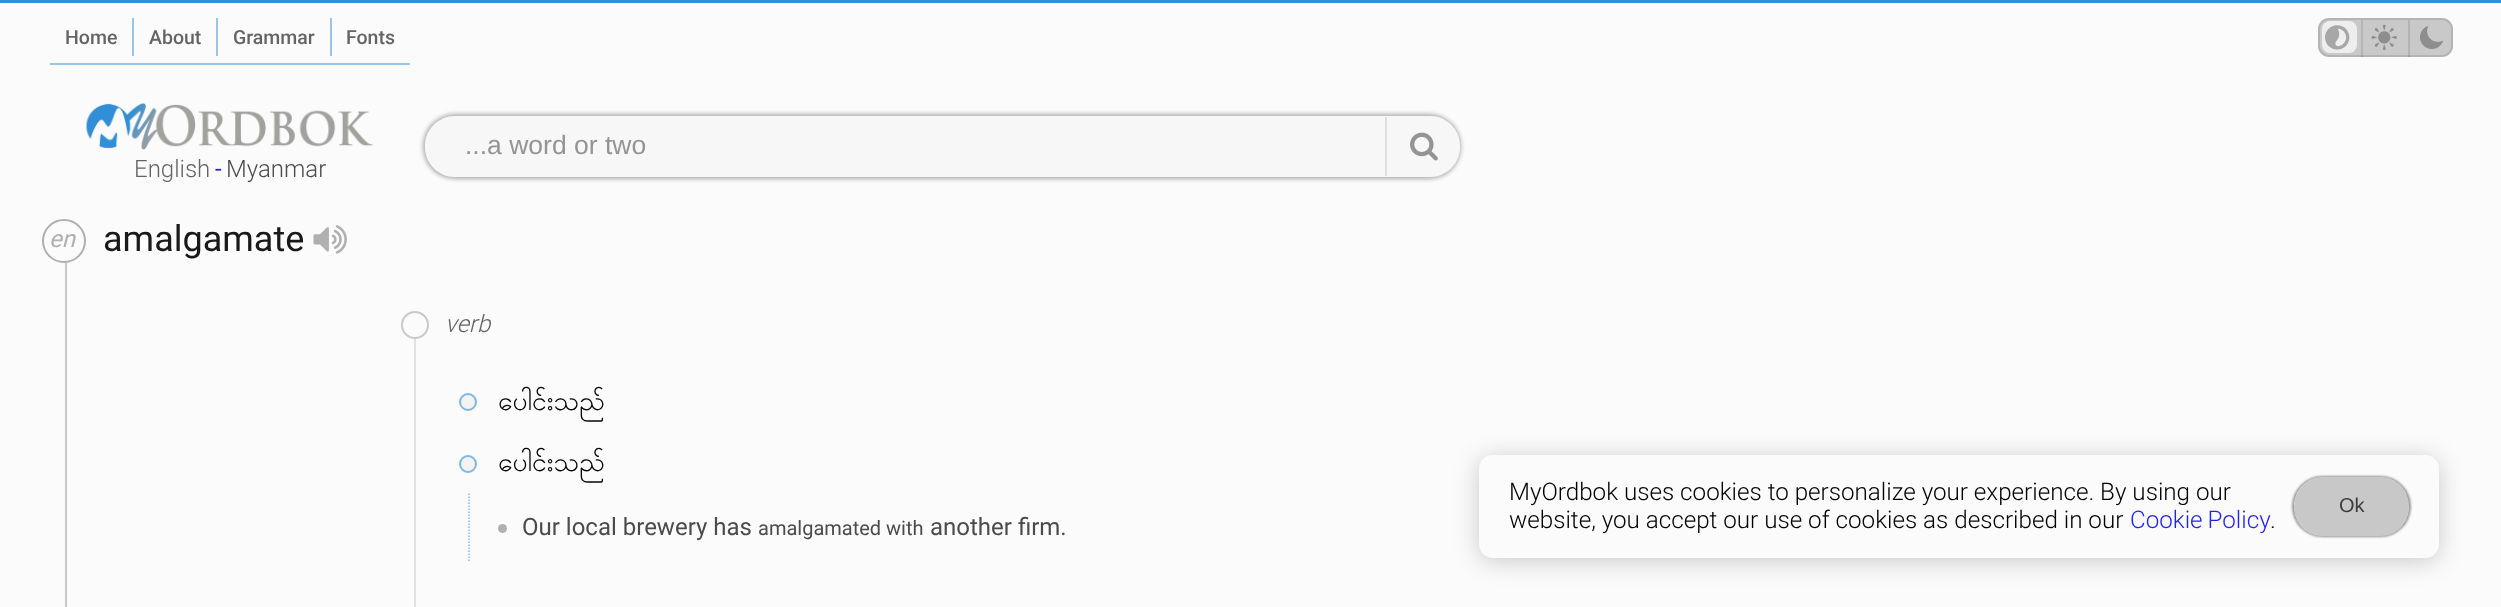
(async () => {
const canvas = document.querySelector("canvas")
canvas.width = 2501
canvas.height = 607
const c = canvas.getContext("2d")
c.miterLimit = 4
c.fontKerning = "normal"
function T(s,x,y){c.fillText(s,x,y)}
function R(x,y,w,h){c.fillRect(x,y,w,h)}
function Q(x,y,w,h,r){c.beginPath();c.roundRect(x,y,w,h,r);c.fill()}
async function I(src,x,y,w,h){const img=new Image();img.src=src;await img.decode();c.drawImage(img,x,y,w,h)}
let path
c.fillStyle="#fcfbfb"
R(0,0,2501,607)
c.fillStyle="#3390d7"
R(0,0,2501,3)
c.fillStyle="#98c6e9"
R(50,63,360,2)
c.font="500 19.5px Roboto"
c.fillStyle="#656464"
T("Home",65,44)
c.fillStyle="#98c6e9"
R(132,18,2,38)
c.fillStyle="#656464"
T("About",149,44)
c.fillStyle="#98c6e9"
R(216,18,2,38)
c.fillStyle="#656464"
T("Grammar",233,44)
c.fillStyle="#98c6e9"
R(330,18,2,38)
c.fillStyle="#656464"
T("Fonts",346,44)
c.fillStyle="#cac9c9"
Q(2318,18,135,39,11)
c.beginPath()
c.roundRect(2319,19,133,37,10)
c.strokeStyle="#0000001a"
c.lineWidth=2
c.stroke()
c.fillStyle="#0000001a"
R(2361,20,2,37)
c.fillStyle="#eee"
Q(2322,21,35,32,8)
await I("1.png",2325,25,25,25)
c.fillStyle="#0000001a"
R(2408,20,2,37)
await I("2.png",2371,24,26,26)
await I("3.png",2420,26,23,23)
c.save()
path = new Path2D("M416 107h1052v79h-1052zm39 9h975c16.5 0 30 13.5 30 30v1c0 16.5-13.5 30-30 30h-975c-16.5 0-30-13.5-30-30v-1c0-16.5 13.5-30 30-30z")
c.clip(path,"evenodd")
c.fillStyle="#0000004d"
c.filter="blur(2px)"
c.beginPath()
c.roundRect(423,114,1038,65,32)
c.fill()
c.filter="none"
c.restore()
c.fillStyle="#eeeeee4d"
Q(425,116,1035,61,30)
c.font="26.5px Liberation Sans"
c.fillStyle="#959494"
T("...a word or two",465,154)
c.fillStyle="#dfdede"
R(1385,117,2,59)
await I("4.png",1410,132,28,29)
await I("5.png",86,103,287,47)
c.font="300 24px Roboto"
c.fillStyle="#656464"
T("English",134,177)
c.font="24px Roboto"
c.fillStyle="#1f1ff7"
T("-",215,177)
c.font="300 24px Roboto"
c.fillStyle="#4c4b4b"
T("Myanmar",226,177)
c.fillStyle="#cac9c9"
R(65,262,2,345)
c.fillStyle="#fcfbfb"
c.beginPath()
c.arc(64,241,22,0,7)
c.fill()
c.beginPath()
c.arc(64,241,21,0,7)
c.strokeStyle="#0000004d"
c.stroke()
c.font="italic 24px Roboto"
c.fillStyle="#b0b0b0"
T("en",49,247)
c.font="36px Roboto"
c.fillStyle="#191919"
T("amalgamate",103,251)
await I("6.png",313,225,34,29)
c.beginPath()
c.arc(415,325,13,0,7)
c.strokeStyle="#cac9c9"
c.stroke()
c.font="italic 300 24px Roboto"
c.fillStyle="#656464"
T("verb",445,332)
c.fillStyle="#e3e2e2"
R(414,339,2,268)
c.fillStyle="#f4f3f3"
c.beginPath()
c.arc(468,402,9,0,7)
c.fill()
c.beginPath()
c.arc(468,402,8,0,7)
c.strokeStyle="#318ed799"
c.stroke()
c.font="26.5px Padauk"
c.fillStyle="#000"
T("ပေါင်းသည်",498,410)
c.fillStyle="#f4f3f3"
c.beginPath()
c.arc(468,464,9,0,7)
c.fill()
c.beginPath()
c.arc(468,464,8,0,7)
c.stroke()
c.fillStyle="#000"
T("ပေါင်းသည်",498,471)
path = new Path2D("M469 493.5v69")
c.strokeStyle="#82bae5"
c.lineWidth=1.5
c.setLineDash([1.5,1.5])
c.stroke(path)
c.fillStyle="#b0b0b0"
c.beginPath()
c.arc(502.5,528.5,4.5,0,7)
c.fill()
c.font="24px Roboto"
c.fillStyle="#4c4b4b"
T("Our local brewery has",522,535)
c.font="20px Roboto"
T("amalgamated with",758,535)
c.font="24px Roboto"
T("another firm.",930,535)
c.fillStyle="#00000033"
c.filter="blur(12px)"
c.beginPath()
c.roundRect(1479,458,960,103,14)
c.fill()
c.filter="none"
c.fillStyle="#fcfbfb"
Q(1479,455,960,103,14)
c.font="300 24.2px Roboto"
c.fillStyle="#000"
T("MyOrdbok uses cookies to personalize your experience. By using our",1509,500)
T("website, you accept our use of cookies as described in our",1509,528)
c.wordSpacing="-1px"
c.fillStyle="#1f1ff7"
T("Cookie Policy",2130,528)
c.wordSpacing="0px"
c.fillStyle="#000"
T(".",2270,528)
c.save()
path = new Path2D("M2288 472h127v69h-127zm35.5 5h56c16.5 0 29.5 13 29.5 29.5c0 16.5-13 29.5-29.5 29.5h-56c-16.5 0-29.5-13-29.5-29.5c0-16.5 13-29.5 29.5-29.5z")
c.clip(path,"evenodd")
c.fillStyle="#00000066"
c.filter="blur(1px)"
c.beginPath()
c.roundRect(2292,476,119,61,30.5)
c.fill()
c.filter="none"
c.restore()
c.fillStyle="#00000033"
Q(2294,477,115,59,29.5)
c.font="20px Liberation Sans"
c.fillStyle="#3c3c3c"
T("Ok",2339,512)
})()
